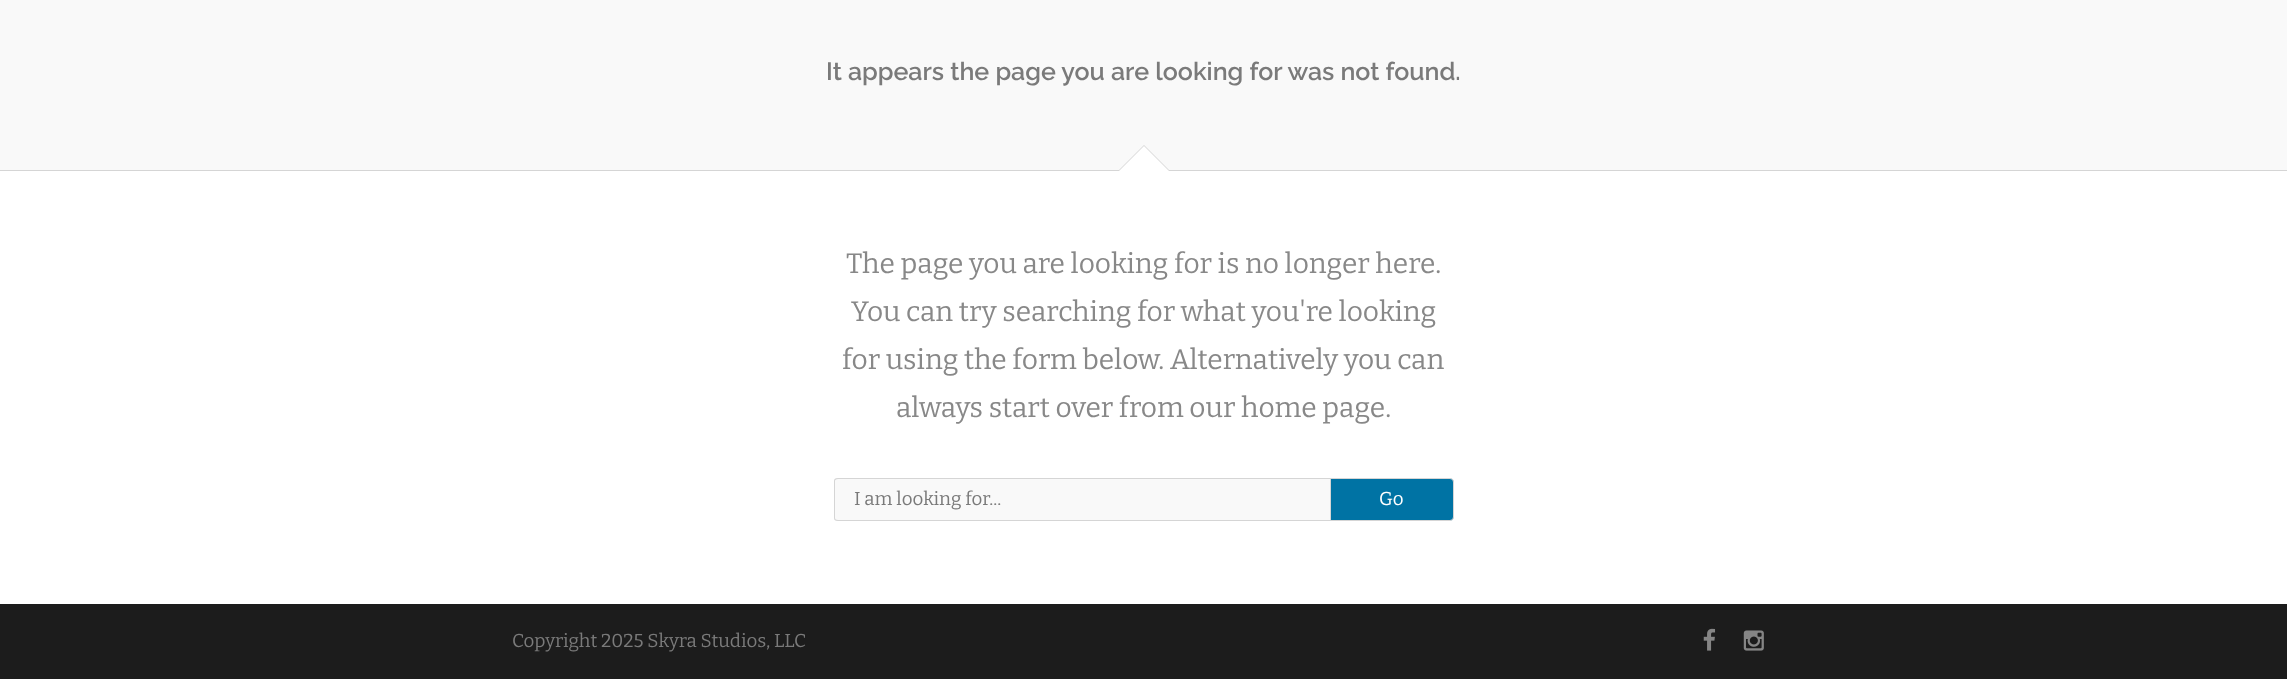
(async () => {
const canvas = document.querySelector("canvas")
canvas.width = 2287
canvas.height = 679
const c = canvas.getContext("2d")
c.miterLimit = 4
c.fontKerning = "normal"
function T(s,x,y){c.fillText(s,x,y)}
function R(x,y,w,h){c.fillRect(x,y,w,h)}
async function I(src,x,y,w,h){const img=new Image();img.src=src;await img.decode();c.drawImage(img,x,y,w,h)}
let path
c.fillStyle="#f9f9f9"
R(0,0,2287,679)
c.font="600 25px Raleway"
c.fillStyle="#7a7a7a"
T("It appears the page you are looking for was not found.",826,80)
c.fillStyle="#fff"
R(0,171,2287,433)
c.fillStyle="#d5d5d5"
R(0,170,2287,1)
path = new Path2D("M1170 171h-52l26-26z")
c.fill(path)
c.fillStyle="#fff"
path = new Path2D("M1169 171h-50l25-25z")
c.fill(path)
c.font="28.1px Bitter"
c.fillStyle="#888"
T("The page you are looking for is no longer here.",846,273)
T("You can try searching for what you're looking",851,321)
T("for using the form below. Alternatively you can",842,369)
T("always start over from our home page.",896,417)
c.fillStyle="#f9f9f9"
c.beginPath()
c.roundRect(834,478,496,43,[4,0,0,4])
c.fill()
c.fillStyle="#d5d5d5"
path = new Path2D("M838 478h492v43h-492c-3 0-4-1-4-3v-37c0-2 1-3 4-3zm0 1h492v41h-492c-2 0-3-1-3-2v-37c0-1 1-2 3-2z")
c.fill(path,"evenodd")
c.font="18.75px Bitter"
c.fillStyle="#7a7a7a"
T("I am looking for...",854,505)
c.fillStyle="#0073a4"
c.beginPath()
c.roundRect(1330.5,478.5,123,42,[0,3.5,3.5,0])
c.fill()
c.strokeStyle="#d5d5d5"
c.stroke()
c.fillStyle="#fff"
T("Go",1379,505)
c.fillStyle="#1c1c1c"
R(0,604,2287,75)
c.fillStyle="#7a7a7a"
T("Copyright 2025 Skyra Studios, LLC",512,647)
await I("1.png",1703,628,13,23)
await I("2.png",1743,630,21,21)
})()
